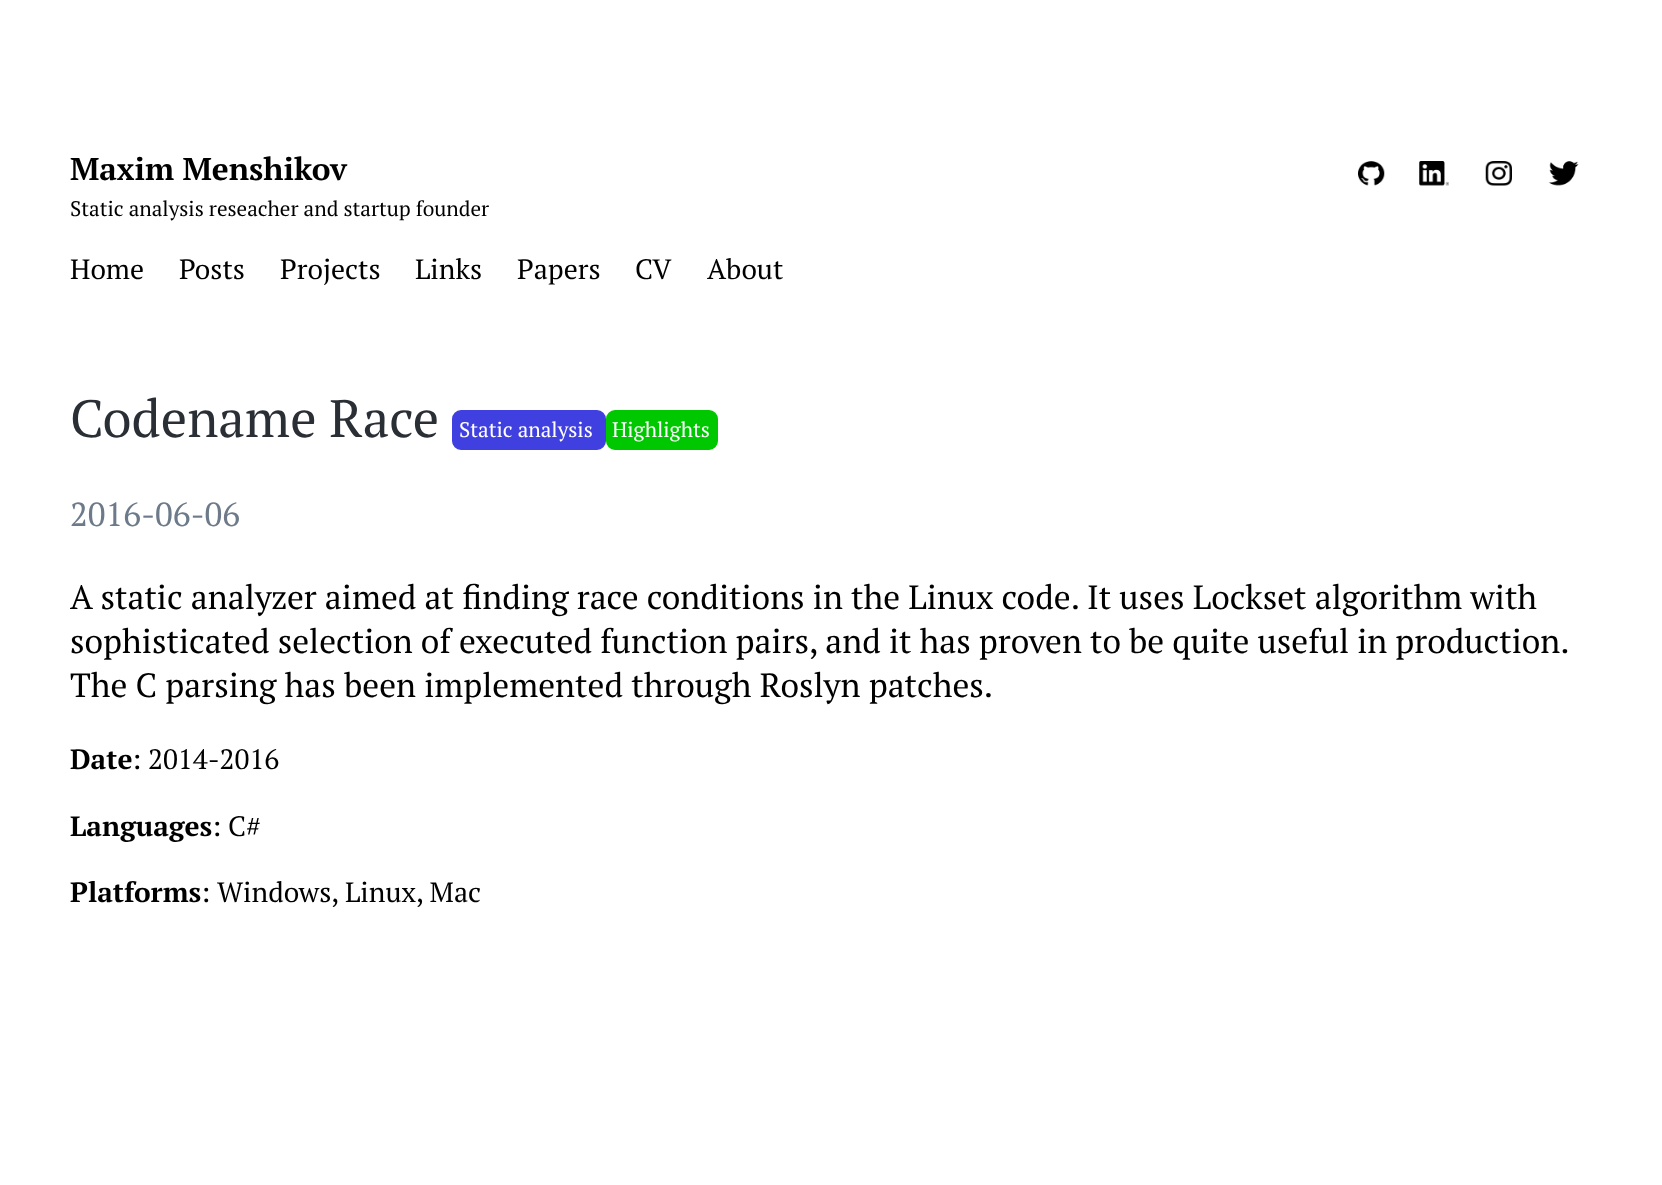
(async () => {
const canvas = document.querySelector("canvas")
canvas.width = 1662
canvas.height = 1185
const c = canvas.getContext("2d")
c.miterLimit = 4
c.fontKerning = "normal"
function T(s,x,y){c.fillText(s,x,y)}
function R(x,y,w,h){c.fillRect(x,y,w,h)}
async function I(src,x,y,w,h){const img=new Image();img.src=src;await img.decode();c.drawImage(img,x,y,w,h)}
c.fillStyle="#fff"
R(0,0,1662,1185)
c.font="bold 31.5px PT Serif"
c.fillStyle="#000"
T("Maxim Menshikov",70,180)
await I("1.png",1358,161,27,25)
await I("2.png",1419,161,30,25)
await I("3.png",1485,161,27,25)
await I("4.png",1548,161,31,25)
c.font="21px PT Serif"
T("Static analysis reseacher and startup founder",70,216)
c.font="28px PT Serif"
T("Home",70,279)
T("Posts",179,279)
T("Projects",280,279)
T("Links",415,279)
T("Papers",517,279)
T("CV",635,279)
T("About",707,279)
c.font="52.5px PT Serif"
c.fillStyle="#2a2f36"
T("Codename Race",70,437)
c.fillStyle="#4040e0"
c.beginPath()
c.roundRect(454,412,150,36,7)
c.fill()
c.strokeStyle="#4040e0"
c.lineWidth=4
c.stroke()
c.font="21px PT Serif"
c.fillStyle="#fff"
T("Static analysis",459,437)
c.fillStyle="#00c800"
c.beginPath()
c.roundRect(608,412,108,36,7)
c.fill()
c.strokeStyle="#00c800"
c.stroke()
c.fillStyle="#fff"
T("Highlights",612,437)
c.font="33.25px PT Serif"
c.fillStyle="#6c7a89"
T("2016-06-06",70,526)
c.font="33.6px PT Serif"
c.fillStyle="#000"
T("A static analyzer aimed at finding race conditions in the Linux code. It uses Lockset algorithm with",70,609)
c.wordSpacing="-0.1px"
T("sophisticated selection of executed function pairs, and it has proven to be quite useful in production.",70,653)
c.wordSpacing="0px"
T("The C parsing has been implemented through Roslyn patches.",70,697)
c.font="bold 28px PT Serif"
T("Date",70,769)
c.font="28px PT Serif"
T(": 2014-2016",132,769)
c.font="bold 28px PT Serif"
T("Languages",70,836)
c.font="28px PT Serif"
T(": C#",212,836)
c.font="bold 28px PT Serif"
T("Platforms",70,902)
c.font="28px PT Serif"
T(": Windows, Linux, Mac",201,902)
})()
